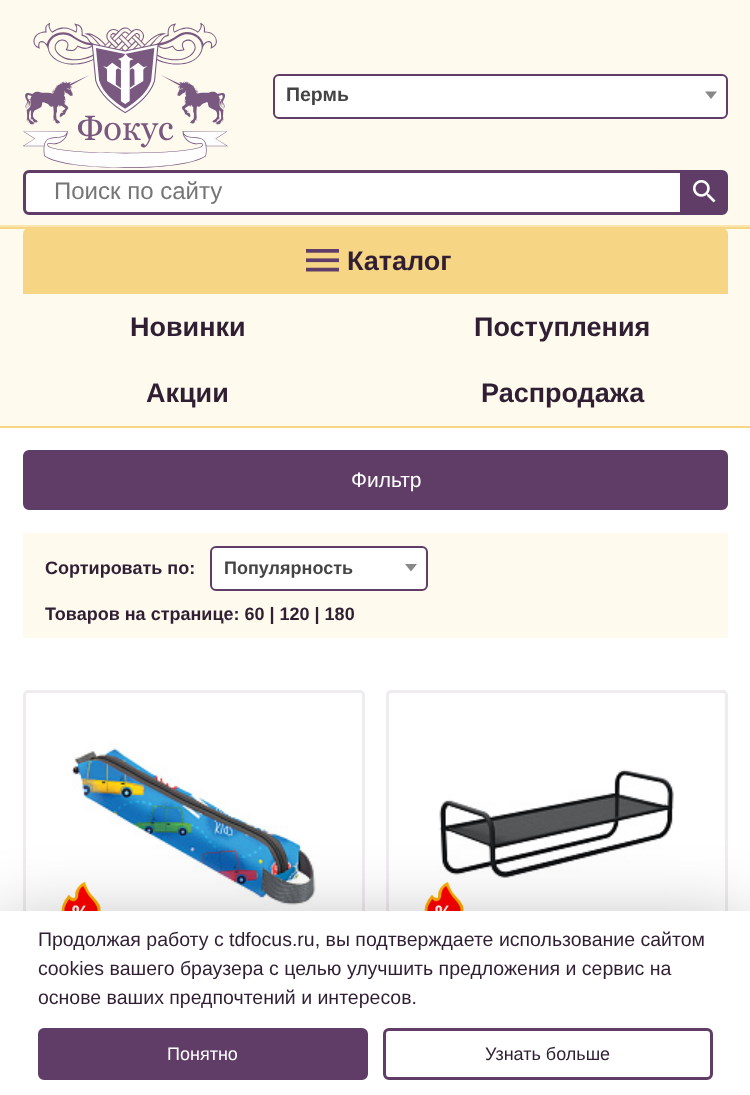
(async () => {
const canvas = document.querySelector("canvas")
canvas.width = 750
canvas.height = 1095
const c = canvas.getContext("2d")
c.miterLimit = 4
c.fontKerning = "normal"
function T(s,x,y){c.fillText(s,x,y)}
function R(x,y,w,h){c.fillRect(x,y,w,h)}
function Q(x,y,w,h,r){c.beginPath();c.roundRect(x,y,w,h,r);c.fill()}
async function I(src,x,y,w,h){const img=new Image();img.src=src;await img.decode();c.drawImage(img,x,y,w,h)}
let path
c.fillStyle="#fff"
R(0,0,750,1095)
c.fillStyle="#fefaee"
R(0,0,750,225)
c.fillStyle="#f9e5ad"
R(0,225,750,2)
await I("1.png",23,23,205,145)
c.fillStyle="#fff"
c.beginPath()
c.roundRect(274,75,453,43,5)
c.fill()
c.strokeStyle="#603d67"
c.lineWidth=2
c.stroke()
c.font="bold 19.5px Arimo"
c.fillStyle="#444"
T("Пермь",286,101)
c.fillStyle="#888"
path = new Path2D("M705 91.5h12l-6 7.5z")
c.fill(path)
c.beginPath()
c.roundRect(24.5,171.5,702,42,4.5)
c.lineWidth=3
c.stroke()
c.fillStyle="#fff"
Q(26,173,654,39,6)
c.font="24px Arimo"
c.fillStyle="#757575"
T("Поиск по сайту",54,199)
c.fillStyle="#603d67"
R(680,173,45,39)
await I("2.png",693,180,23,23)
c.fillStyle="#fefaee"
R(0,229,750,197)
c.fillStyle="#f6d685"
R(0,227,750,2)
R(0,426,750,2)
c.beginPath()
c.roundRect(23,228,705,66,[6,6,0,0])
c.fill()
await I("3.png",306,249,33,23)
c.font="bold 27px Arimo"
c.fillStyle="#301e33"
T("Каталог",347,270)
T("Новинки",130,336)
T("Поступления",474,336)
T("Акции",146,402)
T("Распродажа",481,402)
c.fillStyle="#603d67"
c.beginPath()
c.roundRect(24.5,451.5,702,57,4.5)
c.fill()
c.stroke()
c.font="21px Arimo"
c.fillStyle="#fff"
T("Фильтр",351,487)
c.fillStyle="#fefaee"
R(23,533,705,105)
c.font="bold 18px Arimo"
c.fillStyle="#301e33"
T("Сортировать по:",45,574)
c.fillStyle="#fff"
c.beginPath()
c.roundRect(211,547,216,43,5)
c.fill()
c.lineWidth=2
c.stroke()
c.fillStyle="#444"
T("Популярность",224,574)
c.fillStyle="#888"
path = new Path2D("M405 564h12l-6 7.5z")
c.fill(path)
c.fillStyle="#301e33"
T("Товаров на странице: 60 | 120 | 180",45,620)
c.beginPath()
c.roundRect(24.5,691.5,339,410,3.5)
c.strokeStyle="#efebef"
c.lineWidth=3
c.stroke()
await I("4.png",71,742,245,164)
await I("5.png",61,882,40,29)
c.beginPath()
c.roundRect(387.5,691.5,339,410,3.5)
c.stroke()
await I("6.png",439,769,235,109)
await I("7.png",424,882,40,29)
c.fillStyle="#0000004d"
c.filter="blur(37.5px)"
c.beginPath()
c.rect(0,926,750,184)
c.fill()
c.filter="none"
c.fillStyle="#fff"
R(0,911,750,184)
c.font="19.5px Arimo"
c.fillStyle="#301e33"
T("Продолжая работу с tdfocus.ru, вы подтверждаете использование сайтом",38,946)
T("cookies вашего браузера с целью улучшить предложения и сервис на",38,975)
T("основе ваших предпочтений и интересов.",38,1004)
c.fillStyle="#603d67"
c.beginPath()
c.roundRect(39.5,1029.5,327,49,4.5)
c.fill()
c.strokeStyle="#603d67"
c.stroke()
c.font="18px Arimo"
c.fillStyle="#fff"
T("Понятно",167,1060)
c.beginPath()
c.roundRect(384.5,1029.5,327,49,4.5)
c.stroke()
c.fillStyle="#301e33"
T("Узнать больше",485,1060)
})()
